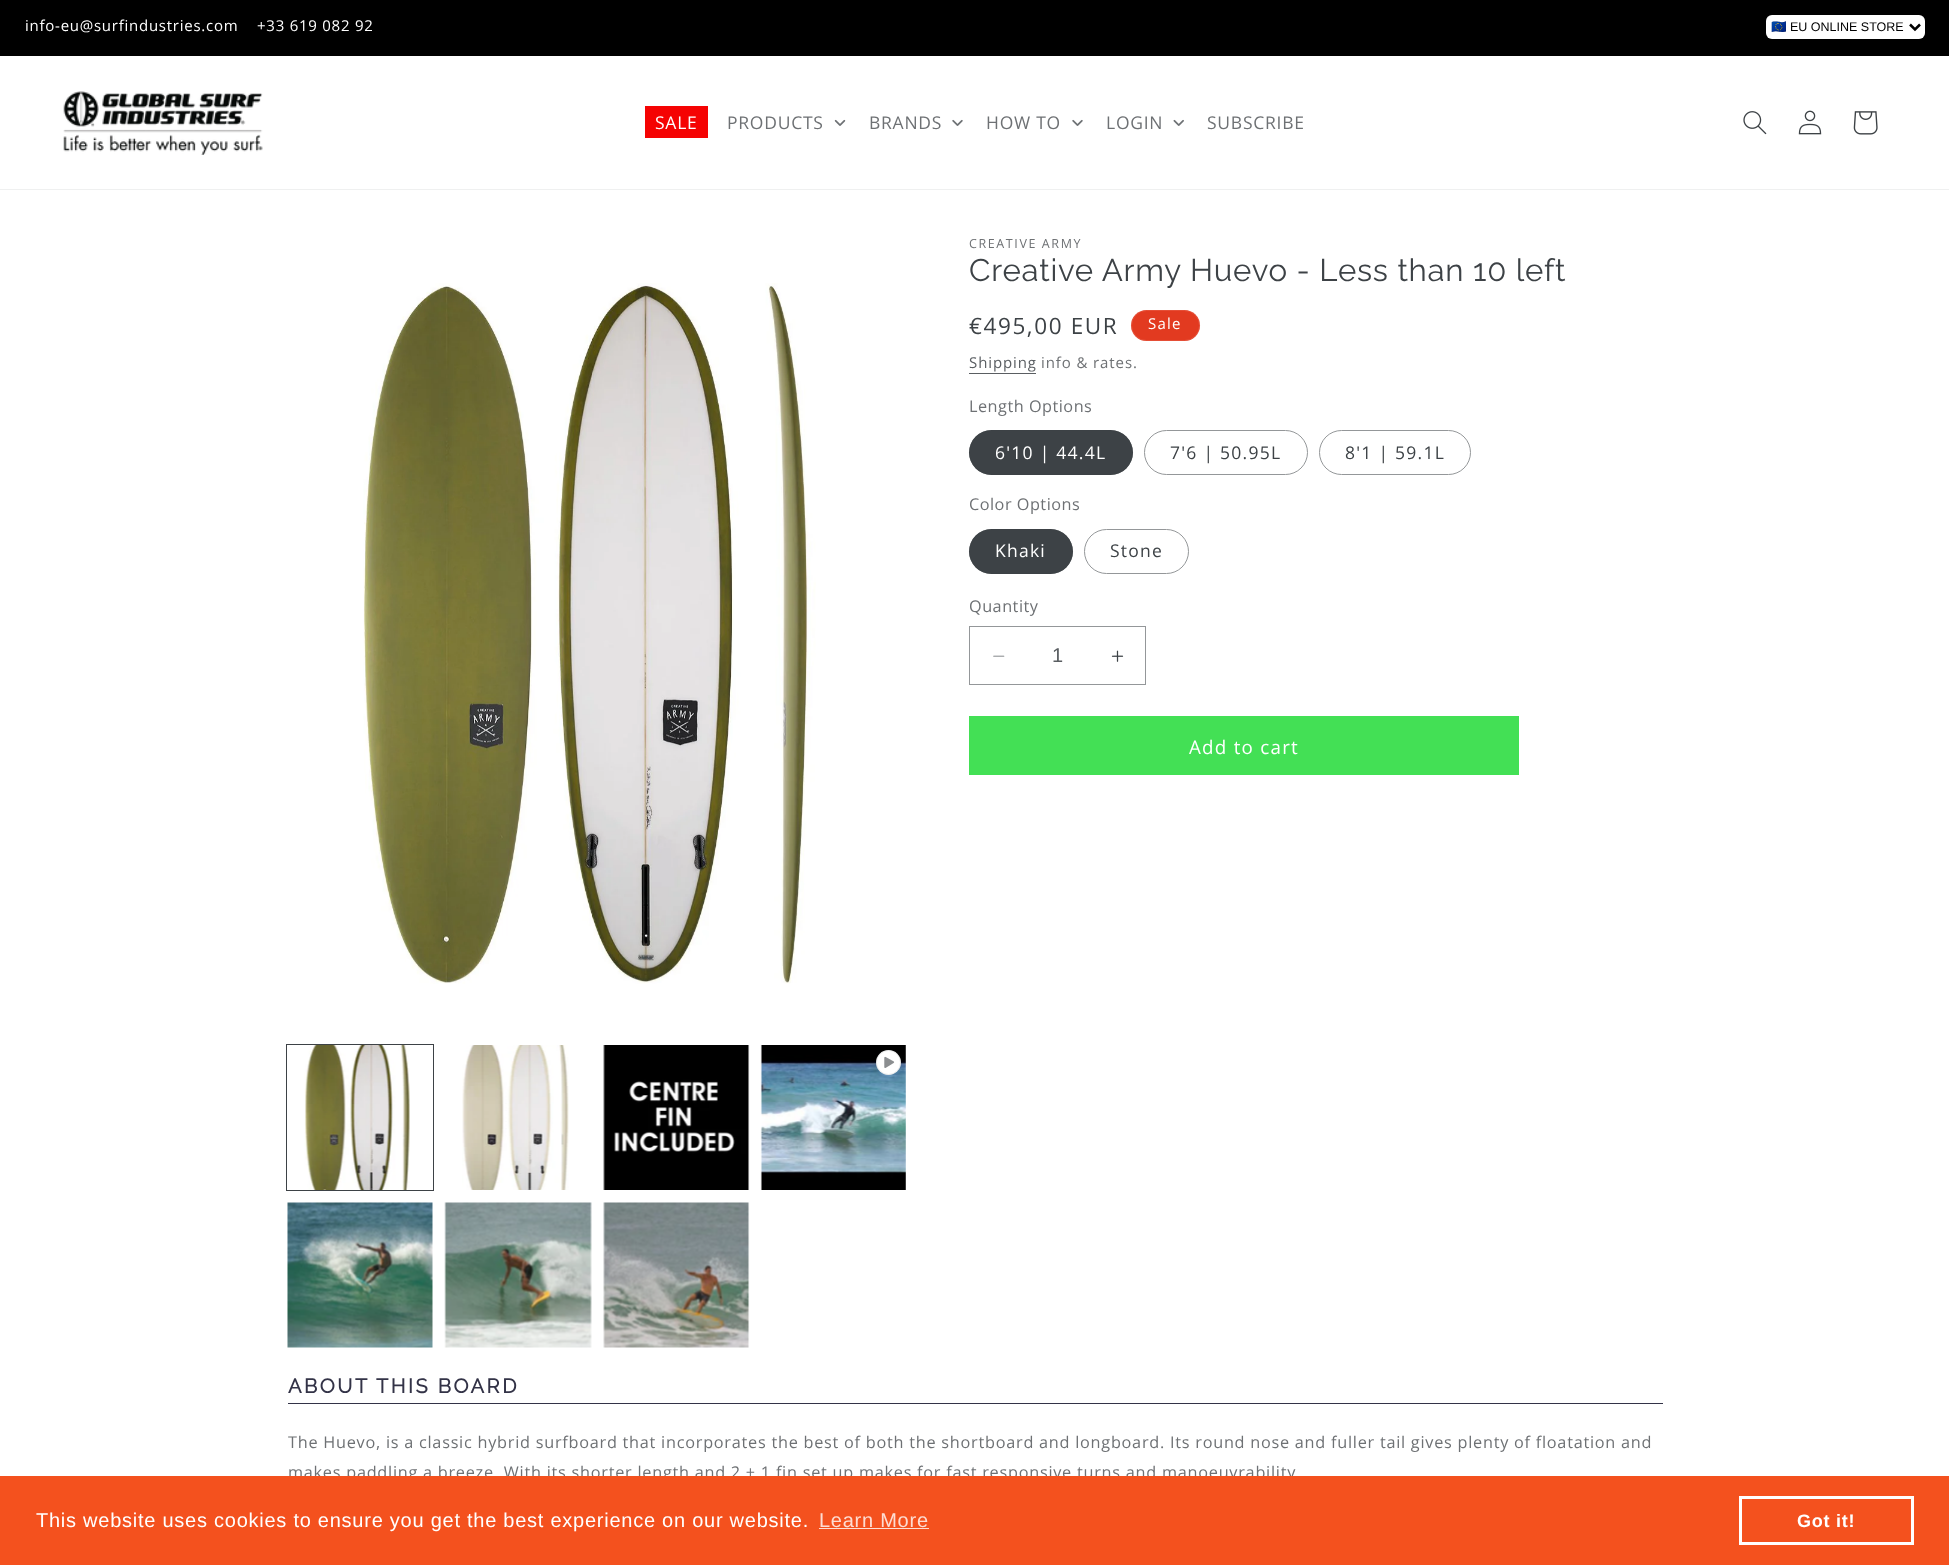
(async () => {
const canvas = document.querySelector("canvas")
canvas.width = 1949
canvas.height = 1565
const c = canvas.getContext("2d")
c.miterLimit = 4
c.fontKerning = "normal"
function T(s,x,y){c.fillText(s,x,y)}
function R(x,y,w,h){c.fillRect(x,y,w,h)}
function Q(x,y,w,h,r){c.beginPath();c.roundRect(x,y,w,h,r);c.fill()}
async function I(src,x,y,w,h){const img=new Image();img.src=src;await img.decode();c.drawImage(img,x,y,w,h)}
let path
c.fillStyle="#fff"
R(0,0,1949,1565)
c.fillStyle="#eff0f0"
R(0,189,1949,1)
c.fillStyle="#000"
R(0,0,1949,56)
c.letterSpacing="0.75px"
c.font="15px Open Sans"
c.fillStyle="#fff"
T("info-eu@surfindustries.com",25,31)
T("+33 619 082 92",257,31)
Q(1766,15,159,24,6)
path = new Path2D("M1910 24.5l5 5l5-5")
c.strokeStyle="#000"
c.lineWidth=2.5
c.stroke(path)
c.letterSpacing="0px"
c.font="12.5px Noto Color Emoji"
c.fillStyle="#000"
T("🇪🇺",1771,31)
c.font="12.5px Liberation Sans"
T("EU ONLINE STORE",1790,31)
await I("1.png",63,91,200,64)
c.fillStyle="#f50303"
R(645,106,63,32)
c.letterSpacing="0.75px"
c.font="17.5px Open Sans"
c.fillStyle="#fff"
T("SALE",655,129)
c.fillStyle="#6e7174"
T("PRODUCTS",727,129)
await I("2.png",834,119,12,7)
T("BRANDS",869,129)
await I("3.png",952,119,11,7)
T("HOW TO",986,129)
await I("3.png",1072,119,11,7)
T("LOGIN",1106,129)
await I("4.png",1173,119,11,7)
T("SUBSCRIBE",1207,129)
await I("5.png",1743,111,24,24)
await I("6.png",1798,110,24,25)
await I("7.png",1853,111,25,24)
await I("8.png",363,283,453,701)
c.strokeStyle="#3d4246"
c.lineWidth=1
c.strokeRect(286.5,1044.5,147,146)
await I("9.png",304,1045,106,145)
await I("10.png",462,1045,107,145)
await I("11.png",603,1045,147,145)
await I("12.png",760,1045,146,145)
c.fillStyle="#fff"
c.beginPath()
c.arc(888.5,1062.5,12.5,0,7)
c.fill()
c.beginPath()
c.arc(888.5,1062.5,12,0,7)
c.strokeStyle="#3d42461a"
c.stroke()
await I("13.png",884,1056,11,12)
await I("14.png",287,1202,146,146)
await I("15.png",444,1202,148,146)
await I("16.png",603,1202,147,146)
c.letterSpacing="1.6px"
c.font="12.5px Open Sans"
c.fillStyle="#6e7174"
T("CREATIVE ARMY",969,248)
c.letterSpacing="0.75px"
c.font="31.25px Raleway"
c.fillStyle="#3d4246"
T("Creative Army Huevo - Less than 10 left",969,281)
c.letterSpacing="1.6px"
c.font="22.5px Open Sans"
T("€495,00 EUR",969,334)
c.fillStyle="#e23a20"
Q(1131,310,69,31,15.5)
c.beginPath()
c.roundRect(1131.5,310.5,68,30,15)
c.strokeStyle="#ffffff1a"
c.stroke()
c.letterSpacing="1.25px"
c.font="15px Open Sans"
c.fillStyle="#fff"
T("Sale",1148,329)
c.letterSpacing="0.9px"
c.fillStyle="#5a5e62"
T("Shipping",969,368)
R(969,373,67,1)
c.fillStyle="#6e7174"
T("info & rates.",1041,368)
c.letterSpacing="0.5px"
c.font="16.25px Open Sans"
T("Length Options",969,412)
c.fillStyle="#3d4246"
Q(969,430,164,45,22.5)
c.beginPath()
c.roundRect(969.5,430.5,163,44,22)
c.strokeStyle="#3d42468c"
c.stroke()
c.letterSpacing="1.25px"
c.font="17.5px Open Sans"
c.fillStyle="#fff"
T("6'10 | 44.4L",995,459)
c.beginPath()
c.roundRect(1144.5,430.5,163,44,22)
c.strokeStyle="#949799"
c.stroke()
c.fillStyle="#3d4246"
T("7'6 | 50.95L",1170,459)
c.beginPath()
c.roundRect(1319.5,430.5,151,44,22)
c.stroke()
T("8'1 | 59.1L",1345,459)
c.letterSpacing="0.5px"
c.font="16.25px Open Sans"
c.fillStyle="#6e7174"
T("Color Options",969,510)
c.fillStyle="#3d4246"
Q(969,529,104,45,22.5)
c.beginPath()
c.roundRect(969.5,529.5,103,44,22)
c.strokeStyle="#3d42468c"
c.stroke()
c.letterSpacing="1.25px"
c.font="17.5px Open Sans"
c.fillStyle="#fff"
T("Khaki",995,557)
c.beginPath()
c.roundRect(1084.5,529.5,104,44,22)
c.strokeStyle="#949799"
c.stroke()
c.fillStyle="#3d4246"
T("Stone",1110,557)
c.letterSpacing="0.5px"
c.font="16.25px Open Sans"
c.fillStyle="#6e7174"
T("Quantity",969,612)
await I("17.png",993,655,12,2)
await I("18.png",1111,650,13,12)
c.strokeRect(969.5,626.5,176,58)
c.letterSpacing="0px"
c.font="20px Liberation Sans"
c.fillStyle="#5a5e62"
T("1",1052,662)
c.fillStyle="#43e055"
R(969,716,550,59)
c.letterSpacing="1.25px"
c.font="18.75px Open Sans"
c.fillStyle="#fff"
T("Add to cart",1189,754)
c.fillStyle="#333347"
R(288,1403,1375,1)
c.letterSpacing="2.5px"
c.font="bold 20px Raleway"
T("ABOUT THIS BOARD",288,1393)
c.letterSpacing="0.75px"
c.font="16.25px Open Sans"
c.fillStyle="#6e7174"
T("The Huevo, is a classic hybrid surfboard that incorporates the best of both the shortboard and longboard. Its round nose and fuller tail gives plenty of floatation and",288,1448)
T("makes paddling a breeze. With its shorter length and 2 + 1 fin set up makes for fast responsive turns and manoeuvrability",288,1478)
c.fillStyle="#f4511e"
R(0,1476,1949,89)
c.font="20px Liberation Sans"
c.fillStyle="#fff"
T("This website uses cookies to ensure you get the best experience on our website.",36,1527)
c.fillStyle="#fddcd2"
T("Learn More",819,1527)
R(819,1528,110,1)
c.strokeStyle="#fff"
c.lineWidth=3
c.strokeRect(1740.5,1497.5,172,46)
c.font="bold 18px Liberation Sans"
c.fillStyle="#fff"
T("Got it!",1797,1527)
})()
